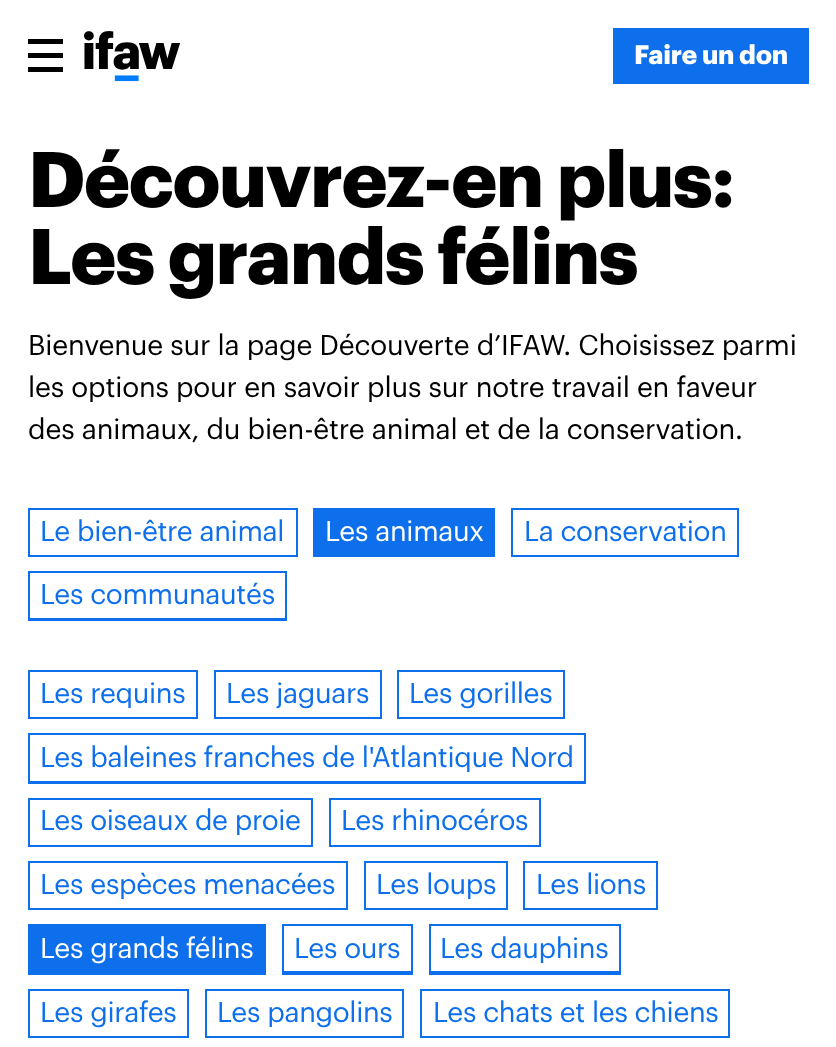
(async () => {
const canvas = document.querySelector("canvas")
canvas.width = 836
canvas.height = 1047
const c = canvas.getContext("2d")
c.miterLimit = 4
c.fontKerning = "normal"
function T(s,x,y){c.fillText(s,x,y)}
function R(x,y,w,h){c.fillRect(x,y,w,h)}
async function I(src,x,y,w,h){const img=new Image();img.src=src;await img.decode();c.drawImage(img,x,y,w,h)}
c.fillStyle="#fff"
R(0,0,836,1047)
c.fillStyle="#000"
R(28,39,35,5)
R(28,53,35,5)
R(28,67,35,5)
await I("1.png",84,31,96,51)
c.fillStyle="#0d6fec"
R(613,28,196,56)
c.letterSpacing="-0.25px"
c.font="bold 26.25px Graphik"
c.fillStyle="#fff"
T("Faire un don",634,64)
c.letterSpacing="-1.25px"
c.font="bold 77px Graphik"
c.fillStyle="#000"
T("Découvrez-en plus:",28,207)
T("Les grands félins",28,284)
c.letterSpacing="-0.18px"
c.font="28px Graphik"
T("Bienvenue sur la page Découverte d’IFAW. Choisissez parmi",28,355)
T("les options pour en savoir plus sur notre travail en faveur",28,397)
T("des animaux, du bien-être animal et de la conservation.",28,439)
c.strokeStyle="#0d6fec"
c.lineWidth=2
c.strokeRect(29,509,268,47)
c.letterSpacing="-0.35px"
c.fillStyle="#0d6fec"
T("Le bien-être animal",40,541)
c.beginPath()
c.rect(314,509,180,47)
c.fill()
c.stroke()
c.fillStyle="#fff"
T("Les animaux",325,541)
c.strokeRect(512,509,226,47)
c.fillStyle="#0d6fec"
T("La conservation",524,541)
R(30,618,255,1)
c.strokeRect(29,572,257,48)
T("Les communautés",40,604)
c.strokeRect(29,671,168,47)
T("Les requins",40,703)
c.strokeRect(215,671,166,47)
T("Les jaguars",226,703)
c.strokeRect(398,671,166,47)
T("Les gorilles",409,703)
R(30,781,555,1)
c.strokeRect(29,734,556,49)
T("Les baleines franches de l'Atlantique Nord",40,767)
c.strokeRect(29,799,283,47)
T("Les oiseaux de proie",40,830)
c.strokeRect(330,799,210,47)
T("Les rhinocéros",341,830)
c.strokeRect(29,862,318,47)
T("Les espèces menacées",40,894)
c.strokeRect(365,862,142,47)
T("Les loups",376,894)
c.strokeRect(524,862,133,47)
T("Les lions",536,894)
c.beginPath()
c.rect(29,925,236,49)
c.fill()
c.stroke()
c.fillStyle="#fff"
T("Les grands félins",40,958)
c.fillStyle="#0d6fec"
R(284,971,127,2)
c.strokeRect(283,925,129,49)
T("Les ours",294,958)
R(431,971,189,2)
c.strokeRect(430,925,190,49)
T("Les dauphins",440,958)
c.strokeRect(29,990,159,47)
T("Les girafes",40,1022)
c.strokeRect(206,990,197,47)
T("Les pangolins",217,1022)
c.strokeRect(421,990,308,47)
T("Les chats et les chiens",433,1022)
})()
